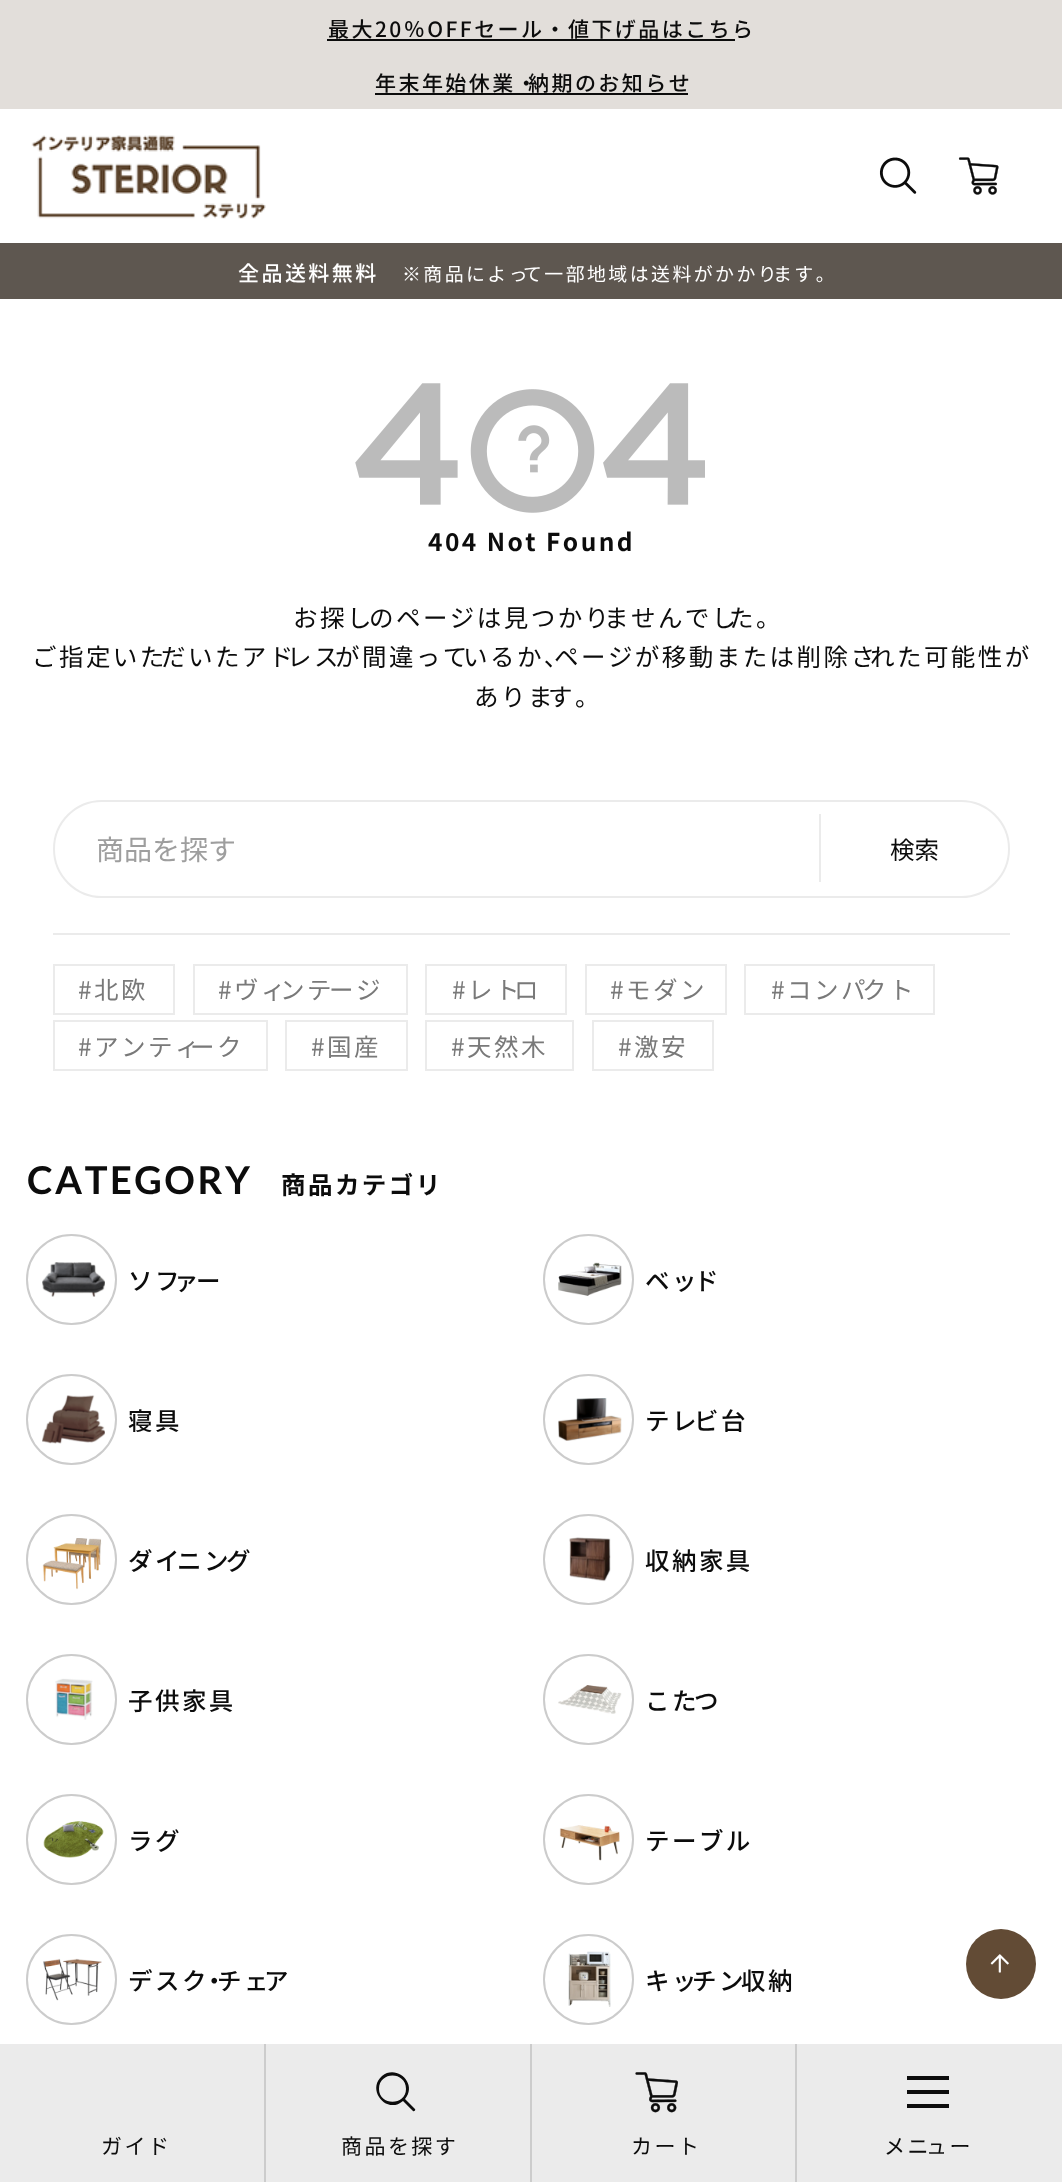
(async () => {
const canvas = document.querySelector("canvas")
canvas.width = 1062
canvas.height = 2182
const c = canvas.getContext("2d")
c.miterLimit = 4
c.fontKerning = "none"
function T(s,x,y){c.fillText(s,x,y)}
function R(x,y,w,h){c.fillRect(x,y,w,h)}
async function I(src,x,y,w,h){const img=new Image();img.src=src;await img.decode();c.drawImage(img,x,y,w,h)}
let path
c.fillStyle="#fff"
R(0,0,1062,2182)
c.fillStyle="#e2deda"
R(0,0,1062,109)
c.letterSpacing="2.45px"
c.font="500 21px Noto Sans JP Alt"
c.fillStyle="#0c0c0c"
T("最大20％OFFセール・値下げ品はこちら",328,37)
R(327,39,408,2)
c.font="500 21px Noto Sans JP"
T("年末年始休業・",375,91)
T("納期のお知らせ",528,91)
R(375,93,313,2)
await I("1.png",31,135,235,84)
await I("2.png",879,157,38,37)
await I("3.png",958,157,41,38)
c.fillStyle="#5e5750"
R(0,243,1062,56)
c.fillStyle="#fff"
T("全品送料無料",238,281)
c.font="18.9px Noto Sans JP"
T("※商品によっ",402,281)
T("て一部地域は送料がかかり",523,281)
T("ます。",773,281)
await I("4.png",355,383,350,130)
c.font="bold 24.5px Noto Sans JP"
c.fillStyle="#0c0c0c"
T("404 Not Found",428,551)
c.font="24.5px Noto Sans JP"
T("お探し",293,627)
T("のページは見つかり",369,627)
T("ませんでし",604,627)
T("た。",729,627)
T("ご指定いた",32,666)
T("だいたアド",161,666)
T("レス",287,666)
T("が間違って",335,666)
T("いるか、",463,666)
T("ページが移動または削除さ",554,666)
T("れた可能性が",870,666)
T("ありま",474,706)
T("す。",548,706)
c.beginPath()
c.roundRect(54,801,955,96,48)
c.strokeStyle="#ebebeb"
c.lineWidth=2
c.stroke()
c.letterSpacing="0px"
c.font="28px Noto Sans JP"
c.fillStyle="#9e9e9e"
T("商品を探す",96,860)
c.fillStyle="#ebebeb"
R(819,814,2,68)
c.font="24.5px Noto Sans JP"
c.fillStyle="#0c0c0c"
T("検索",890,859)
c.fillStyle="#ebebeb"
R(53,933,957,2)
c.letterSpacing="2.45px"
c.fillStyle="#797979"
T("#北欧",78,999)
c.fillStyle="#ebebeb"
R(53,964,122,2)
R(53,1013,42,2)
R(53,964,2,51)
R(173,964,2,51)
R(95,1013,80,2)
c.fillStyle="#797979"
T("#ヴィ",218,999)
T("ンテ",280,999)
T("ージ",329,999)
c.fillStyle="#ebebeb"
R(193,964,215,2)
R(193,1013,42,2)
R(193,964,2,51)
R(406,964,2,51)
R(235,1013,173,2)
c.fillStyle="#797979"
T("#レト",452,999)
T("ロ",514,999)
c.fillStyle="#ebebeb"
R(425,964,142,2)
R(425,1013,44,2)
R(425,964,2,51)
R(565,964,2,51)
R(469,1013,98,2)
c.fillStyle="#797979"
T("#モダン",610,999)
c.fillStyle="#ebebeb"
R(585,964,141,2)
R(585,1013,42,2)
R(585,964,2,51)
R(725,964,2,51)
R(627,1013,99,2)
c.fillStyle="#797979"
T("#コンパ",771,999)
T("クト",862,999)
c.fillStyle="#ebebeb"
R(744,964,191,2)
R(744,1013,44,2)
R(744,964,2,51)
R(933,964,2,51)
R(788,1013,147,2)
c.fillStyle="#797979"
T("#アンティ",78,1056)
T("ーク",190,1056)
c.fillStyle="#ebebeb"
R(53,1020,215,2)
R(53,1069,42,2)
R(53,1020,2,51)
R(266,1020,2,51)
R(95,1069,173,2)
c.fillStyle="#797979"
T("#国産",311,1056)
c.fillStyle="#ebebeb"
R(285,1020,123,2)
R(285,1069,42,2)
R(285,1020,2,51)
R(406,1020,2,51)
R(327,1069,81,2)
c.fillStyle="#797979"
T("#天然木",451,1056)
c.fillStyle="#ebebeb"
R(425,1020,149,2)
R(425,1069,42,2)
R(425,1020,2,51)
R(572,1020,2,51)
R(467,1069,107,2)
c.fillStyle="#797979"
T("#激安",618,1056)
c.fillStyle="#ebebeb"
R(592,1020,122,2)
R(592,1069,42,2)
R(592,1020,2,51)
R(712,1020,2,51)
R(634,1069,80,2)
c.font="bold 38.25px Lato"
c.fillStyle="#0c0c0c"
T("CATEGORY",27,1194)
c.font="bold 24.5px Noto Sans JP"
T("商品カテゴリ",281,1194)
c.beginPath()
c.arc(71.5,1279.5,44.5,0,7)
c.strokeStyle="#ccc"
c.stroke()
await I("5.png",42,1262,63,35)
c.font="500 24.5px Noto Sans JP"
T("ソフ",128,1290)
T("ァ",174,1290)
T("ー",196,1290)
c.beginPath()
c.arc(588.5,1279.5,44.5,0,7)
c.stroke()
await I("6.png",558,1262,64,34)
T("ベッ",645,1290)
T("ド",694,1290)
c.beginPath()
c.arc(71.5,1419.5,44.5,0,7)
c.stroke()
await I("7.png",42,1395,63,49)
T("寝具",128,1430)
c.beginPath()
c.arc(588.5,1419.5,44.5,0,7)
c.stroke()
await I("8.png",558,1398,64,43)
T("テレ",645,1430)
T("ビ台",694,1430)
c.beginPath()
c.arc(71.5,1559.5,44.5,0,7)
c.stroke()
await I("9.png",42,1538,60,52)
T("ダイ",128,1570)
T("ニン",177,1570)
T("グ",226,1570)
c.beginPath()
c.arc(588.5,1559.5,44.5,0,7)
c.stroke()
await I("10.png",569,1537,42,45)
T("収納家具",645,1570)
c.beginPath()
c.arc(71.5,1699.5,44.5,0,7)
c.stroke()
await I("11.png",55,1678,38,42)
T("子供家具",128,1710)
c.beginPath()
c.arc(588.5,1699.5,44.5,0,7)
c.stroke()
await I("12.png",558,1685,64,29)
T("こた",645,1710)
T("つ",694,1710)
c.beginPath()
c.arc(71.5,1839.5,44.5,0,7)
c.stroke()
await I("13.png",43,1821,61,37)
T("ラグ",128,1850)
c.beginPath()
c.arc(588.5,1839.5,44.5,0,7)
c.stroke()
await I("14.png",559,1825,61,36)
T("テーブル",645,1850)
c.beginPath()
c.arc(71.5,1979.5,44.5,0,7)
c.stroke()
await I("15.png",43,1958,59,43)
T("デスク",128,1990)
T("・",202,1990)
T("チェ",217,1990)
T("ア",264,1990)
c.beginPath()
c.arc(588.5,1979.5,44.5,0,7)
c.stroke()
await I("16.png",568,1951,43,56)
T("キッ",645,1990)
T("チン",692,1990)
T("収納",741,1990)
c.fillStyle="#624b35"
c.beginPath()
c.arc(1001,1964,35,0,7)
c.fill()
await I("17.png",990,1954,19,19)
c.fillStyle="#ebebeb"
R(0,2044,1062,138)
c.fillStyle="#ccc"
R(264,2044,2,138)
c.font="21px Noto Sans JP"
c.fillStyle="#0c0c0c"
T("ガイド",101,2154)
path = new Path2D("M413 2111l-10-10c-16 14-37-11-21-25c15-12 36 8 23 23l10 10c1 1-1 3-2 2zm-34-22c0 17 27 17 27 0c0-18-27-18-27 0z")
c.fill(path)
c.fillStyle="#ccc"
R(530,2044,2,138)
c.fillStyle="#0c0c0c"
T("商品を探す",341,2154)
await I("18.png",635,2072,43,41)
c.fillStyle="#ccc"
R(795,2044,2,138)
c.fillStyle="#0c0c0c"
T("カート",631,2154)
R(907,2090,42,4)
R(907,2076,42,4)
R(907,2104,42,4)
T("メニ",884,2154)
T("ュー",926,2154)
})()
